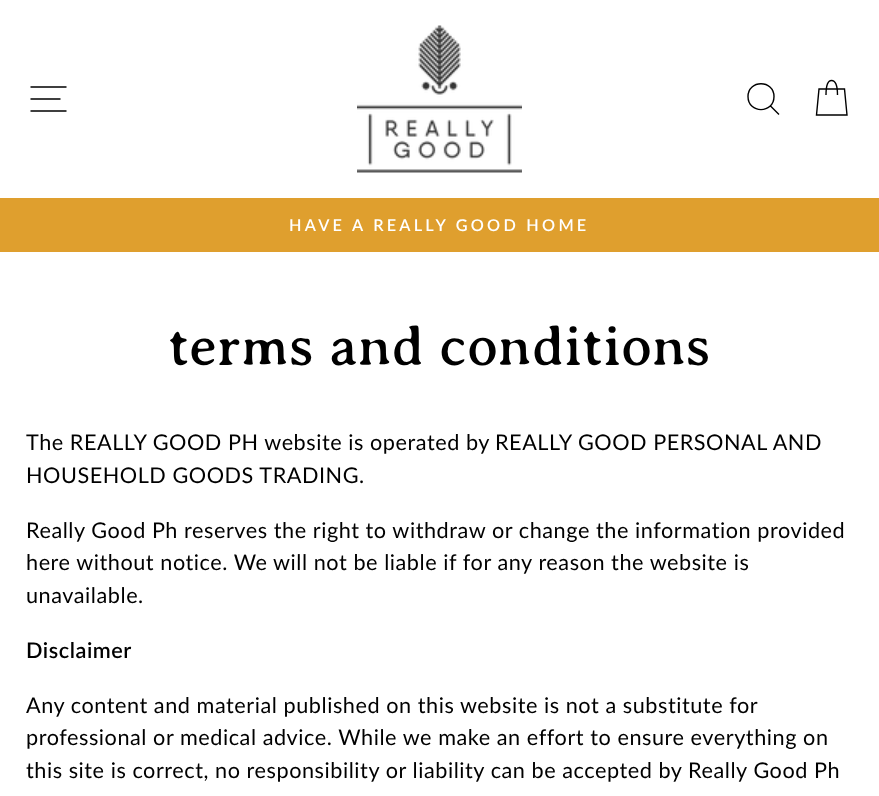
(async () => {
const canvas = document.querySelector("canvas")
canvas.width = 879
canvas.height = 796
const c = canvas.getContext("2d")
c.miterLimit = 4
c.fontKerning = "normal"
function T(s,x,y){c.fillText(s,x,y)}
function R(x,y,w,h){c.fillRect(x,y,w,h)}
async function I(src,x,y,w,h){const img=new Image();img.src=src;await img.decode();c.drawImage(img,x,y,w,h)}
let path
c.fillStyle="#fff"
R(0,0,879,796)
path = new Path2D("M30.5 87h36m-36 12h30m-30 12h36")
c.strokeStyle="#000"
c.lineWidth=1.4
c.stroke(path)
await I("1.png",357,25,165,148)
path = new Path2D("M774 96.5c0 17.5-26 17.5-26 0c0-17 26-17 26 0zm5 18l-8.5-8.5")
c.stroke(path)
path = new Path2D("M826 95c0-11.5 2.5-14.5 5.5-14.5c3.5 0 6 3 6 14.5m-18.5-6h25.5l2.5 26h-30.5z")
c.stroke(path)
c.fillStyle="#df9f2e"
R(0,198,879,54)
c.letterSpacing="3.25px"
c.font="600 16.25px Lato"
c.fillStyle="#fff"
T("HAVE A REALLY GOOD HOME",289,231)
c.letterSpacing="0px"
c.font="57.4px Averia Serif"
c.fillStyle="#000"
T("terms and conditions",168,365)
c.letterSpacing="0.55px"
c.font="21.65px Lato"
T("The REALLY GOOD PH website is operated by",26,450)
T("REALLY GOOD PERSONAL AND",495,450)
T("HOUSEHOLD GOODS TRADING.",26,483)
T("Really Good Ph reserves the right to withdraw or change the information provided",26,538)
T("here without notice. We will not be liable if for any reason the website is",26,570)
T("unavailable.",26,603)
c.font="600 21.65px Lato"
T("Disclaimer",26,658)
c.font="21.65px Lato"
T("Any content and material published on this website is not a substitute for",26,713)
T("professional or medical advice. While we make an effort to ensure everything on",26,745)
T("this site is correct, no responsibility or liability can be accepted by Really Good Ph",26,778)
})()
